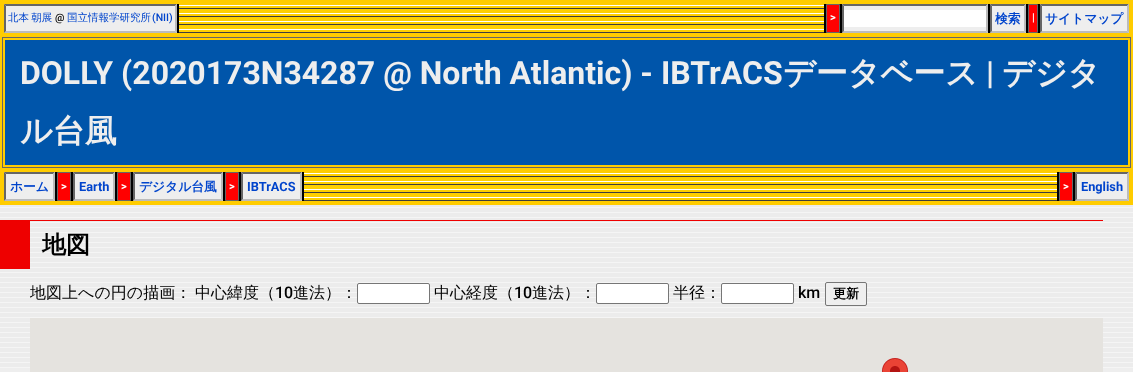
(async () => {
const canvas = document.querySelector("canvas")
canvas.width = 1133
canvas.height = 372
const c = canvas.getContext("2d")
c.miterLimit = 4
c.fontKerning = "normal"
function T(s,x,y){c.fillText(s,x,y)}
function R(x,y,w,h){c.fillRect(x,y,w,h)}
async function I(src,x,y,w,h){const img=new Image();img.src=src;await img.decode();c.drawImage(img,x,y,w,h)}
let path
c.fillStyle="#eee"
R(0,0,1133,372)
await I("1.png",0,205,1133,163)
c.fillStyle="#fc0"
R(0,0,1133,205)
c.fillStyle="#000"
R(177,4,863,29)
c.fillStyle="#eee"
R(4,4,173,29)
c.fillStyle="#666"
path = new Path2D("M4 4h173l-2 2h-169z")
c.fill(path)
c.fillStyle="#bbb"
path = new Path2D("M177 4v29l-2-2v-25z")
c.fill(path)
path = new Path2D("M177 33h-173l2-2h169z")
c.fill(path)
c.fillStyle="#666"
path = new Path2D("M4 33v-29l2 2v25z")
c.fill(path)
c.wordSpacing="-1px"
c.font="500 10.5px WenQuanYi Zen Hei"
c.fillStyle="#04c"
T("北本 朝展",8,21)
c.wordSpacing="0px"
c.font="500 10.5px Roboto"
c.fillStyle="#000"
T("@",55,21)
c.font="500 10.5px WenQuanYi Zen Hei"
c.fillStyle="#04c"
T("国立情報学研究所",67,21)
c.font="500 10.5px Roboto"
T("(NII)",152,21)
c.fillStyle="#fc0"
R(179,4,645,1)
await I("2.png",179,5,645,28)
c.fillStyle="#f00"
c.beginPath()
c.rect(826.5,4.5,13,28)
c.fill()
c.strokeStyle="#666"
c.stroke()
c.font="bold 11px Roboto"
c.fillStyle="#fff"
T(">",830,21)
c.fillStyle="#eee"
R(842,4,146,29)
c.fillStyle="#666"
path = new Path2D("M842 4h146l-2 2h-142z")
c.fill(path)
c.fillStyle="#bbb"
path = new Path2D("M988 4v29l-2-2v-25z")
c.fill(path)
path = new Path2D("M988 33h-146l2-2h142z")
c.fill(path)
c.fillStyle="#666"
path = new Path2D("M842 33v-29l2 2v25z")
c.fill(path)
c.fillStyle="#fff"
R(844,10,142,17)
c.fillStyle="#eee"
R(990,4,36,29)
c.fillStyle="#666"
path = new Path2D("M990 4h36l-2 2h-32z")
c.fill(path)
c.fillStyle="#bbb"
path = new Path2D("M1026 4v29l-2-2v-25z")
c.fill(path)
path = new Path2D("M1026 33h-36l2-2h32z")
c.fill(path)
c.fillStyle="#666"
path = new Path2D("M990 33v-29l2 2v25z")
c.fill(path)
c.font="bold 12.75px WenQuanYi Zen Hei"
c.fillStyle="#04c"
T("検索",995,23)
c.fillStyle="#f00"
c.beginPath()
c.rect(1028.5,4.5,9,28)
c.fill()
c.stroke()
c.font="bold 11px Roboto"
c.fillStyle="#fff"
T("|",1032,21)
c.fillStyle="#eee"
R(1040,4,89,29)
c.fillStyle="#666"
path = new Path2D("M1040 4h89l-2 2h-85z")
c.fill(path)
c.fillStyle="#bbb"
path = new Path2D("M1129 4v29l-2-2v-25z")
c.fill(path)
path = new Path2D("M1129 33h-89l2-2h85z")
c.fill(path)
c.fillStyle="#666"
path = new Path2D("M1040 33v-29l2 2v25z")
c.fill(path)
c.font="bold 12.75px WenQuanYi Zen Hei"
c.fillStyle="#04c"
T("サイトマップ",1045,23)
c.strokeRect(2.5,37.5,1128,130)
c.fillStyle="#05a"
R(5,40,1123,125)
c.font="bold 32px Roboto"
c.fillStyle="#eee"
T("DOLLY (2020173N34287 @ North Atlantic) - IBTrACS",20,84)
c.font="bold 32px WenQuanYi Zen Hei"
T("データベース",783,84)
c.font="bold 32px Roboto"
T("|",986,84)
c.font="bold 32px WenQuanYi Zen Hei"
T("デジタ",1002,84)
T("ル台風",20,142)
c.fillStyle="#000"
R(55,172,1020,29)
c.fillStyle="#eee"
R(4,172,51,29)
c.fillStyle="#666"
path = new Path2D("M4 172h51l-2 2h-47z")
c.fill(path)
c.fillStyle="#bbb"
path = new Path2D("M55 172v29l-2-2v-25z")
c.fill(path)
path = new Path2D("M55 201h-51l2-2h47z")
c.fill(path)
c.fillStyle="#666"
path = new Path2D("M4 201v-29l2 2v25z")
c.fill(path)
c.font="bold 12.75px WenQuanYi Zen Hei"
c.fillStyle="#04c"
T("ホーム",10,191)
c.fillStyle="#f00"
c.beginPath()
c.rect(57.5,172.5,13,28)
c.fill()
c.stroke()
c.font="bold 11px Roboto"
c.fillStyle="#fff"
T(">",61,190)
c.fillStyle="#eee"
R(73,172,42,29)
c.fillStyle="#666"
path = new Path2D("M73 172h42l-2 2h-38z")
c.fill(path)
c.fillStyle="#bbb"
path = new Path2D("M115 172v29l-2-2v-25z")
c.fill(path)
path = new Path2D("M115 201h-42l2-2h38z")
c.fill(path)
c.fillStyle="#666"
path = new Path2D("M73 201v-29l2 2v25z")
c.fill(path)
c.font="bold 12.75px Roboto"
c.fillStyle="#04c"
T("Earth",79,191)
c.fillStyle="#f00"
c.beginPath()
c.rect(117.5,172.5,13,28)
c.fill()
c.stroke()
c.font="bold 11px Roboto"
c.fillStyle="#fff"
T(">",121,190)
c.fillStyle="#eee"
R(133,172,90,29)
c.fillStyle="#666"
path = new Path2D("M133 172h90l-2 2h-86z")
c.fill(path)
c.fillStyle="#bbb"
path = new Path2D("M223 172v29l-2-2v-25z")
c.fill(path)
path = new Path2D("M223 201h-90l2-2h86z")
c.fill(path)
c.fillStyle="#666"
path = new Path2D("M133 201v-29l2 2v25z")
c.fill(path)
c.font="bold 12.75px WenQuanYi Zen Hei"
c.fillStyle="#04c"
T("デジタル台風",139,191)
c.fillStyle="#f00"
c.beginPath()
c.rect(225.5,172.5,13,28)
c.fill()
c.stroke()
c.font="bold 11px Roboto"
c.fillStyle="#fff"
T(">",229,190)
c.fillStyle="#eee"
R(241,172,61,29)
c.fillStyle="#666"
path = new Path2D("M241 172h61l-2 2h-57z")
c.fill(path)
c.fillStyle="#bbb"
path = new Path2D("M302 172v29l-2-2v-25z")
c.fill(path)
path = new Path2D("M302 201h-61l2-2h57z")
c.fill(path)
c.fillStyle="#666"
path = new Path2D("M241 201v-29l2 2v25z")
c.fill(path)
c.font="bold 12.75px Roboto"
c.fillStyle="#04c"
T("IBTrACS",247,191)
c.fillStyle="#fc0"
R(304,172,753,1)
await I("3.png",304,173,753,28)
c.fillStyle="#f00"
c.beginPath()
c.rect(1059.5,172.5,13,28)
c.fill()
c.stroke()
c.font="bold 11px Roboto"
c.fillStyle="#fff"
T(">",1063,190)
c.fillStyle="#eee"
R(1075,172,54,29)
c.fillStyle="#666"
path = new Path2D("M1075 172h54l-2 2h-50z")
c.fill(path)
c.fillStyle="#bbb"
path = new Path2D("M1129 172v29l-2-2v-25z")
c.fill(path)
path = new Path2D("M1129 201h-54l2-2h50z")
c.fill(path)
c.fillStyle="#666"
path = new Path2D("M1075 201v-29l2 2v25z")
c.fill(path)
c.font="bold 12.75px Roboto"
c.fillStyle="#04c"
T("English",1081,191)
c.fillStyle="#e00"
R(30,220,1073,1)
R(0,220,30,49)
c.font="bold 24px WenQuanYi Zen Hei"
c.fillStyle="#000"
T("地図",42,253)
c.font="500 16px WenQuanYi Zen Hei"
T("地図上への円の描画：",30,298)
T("中心緯度（",195,298)
c.font="500 16px Roboto"
T("10",275,298)
c.font="500 16px WenQuanYi Zen Hei"
T("進法）：",293,298)
c.fillStyle="#fff"
c.beginPath()
c.roundRect(357.5,283.5,72,20,1.5)
c.fill()
c.strokeStyle="#767676"
c.stroke()
c.fillStyle="#000"
T("中心経度（",434,298)
c.font="500 16px Roboto"
T("10",514,298)
c.font="500 16px WenQuanYi Zen Hei"
T("進法）：",532,298)
c.fillStyle="#fff"
c.beginPath()
c.roundRect(596.5,283.5,72,20,1.5)
c.fill()
c.stroke()
c.fillStyle="#000"
T("半径：",673,298)
c.fillStyle="#fff"
c.beginPath()
c.roundRect(721.5,283.5,72,20,1.5)
c.fill()
c.stroke()
c.font="500 16px Roboto"
c.fillStyle="#000"
T("km",798,298)
c.fillStyle="#efefef"
c.beginPath()
c.roundRect(825.5,282.5,41,23,1.5)
c.fill()
c.stroke()
c.font="bold 13px WenQuanYi Zen Hei"
c.fillStyle="#000"
T("更新",833,298)
c.fillStyle="#e5e3df"
R(30,318,1073,54)
await I("4.png",882,358,26,14)
})()
